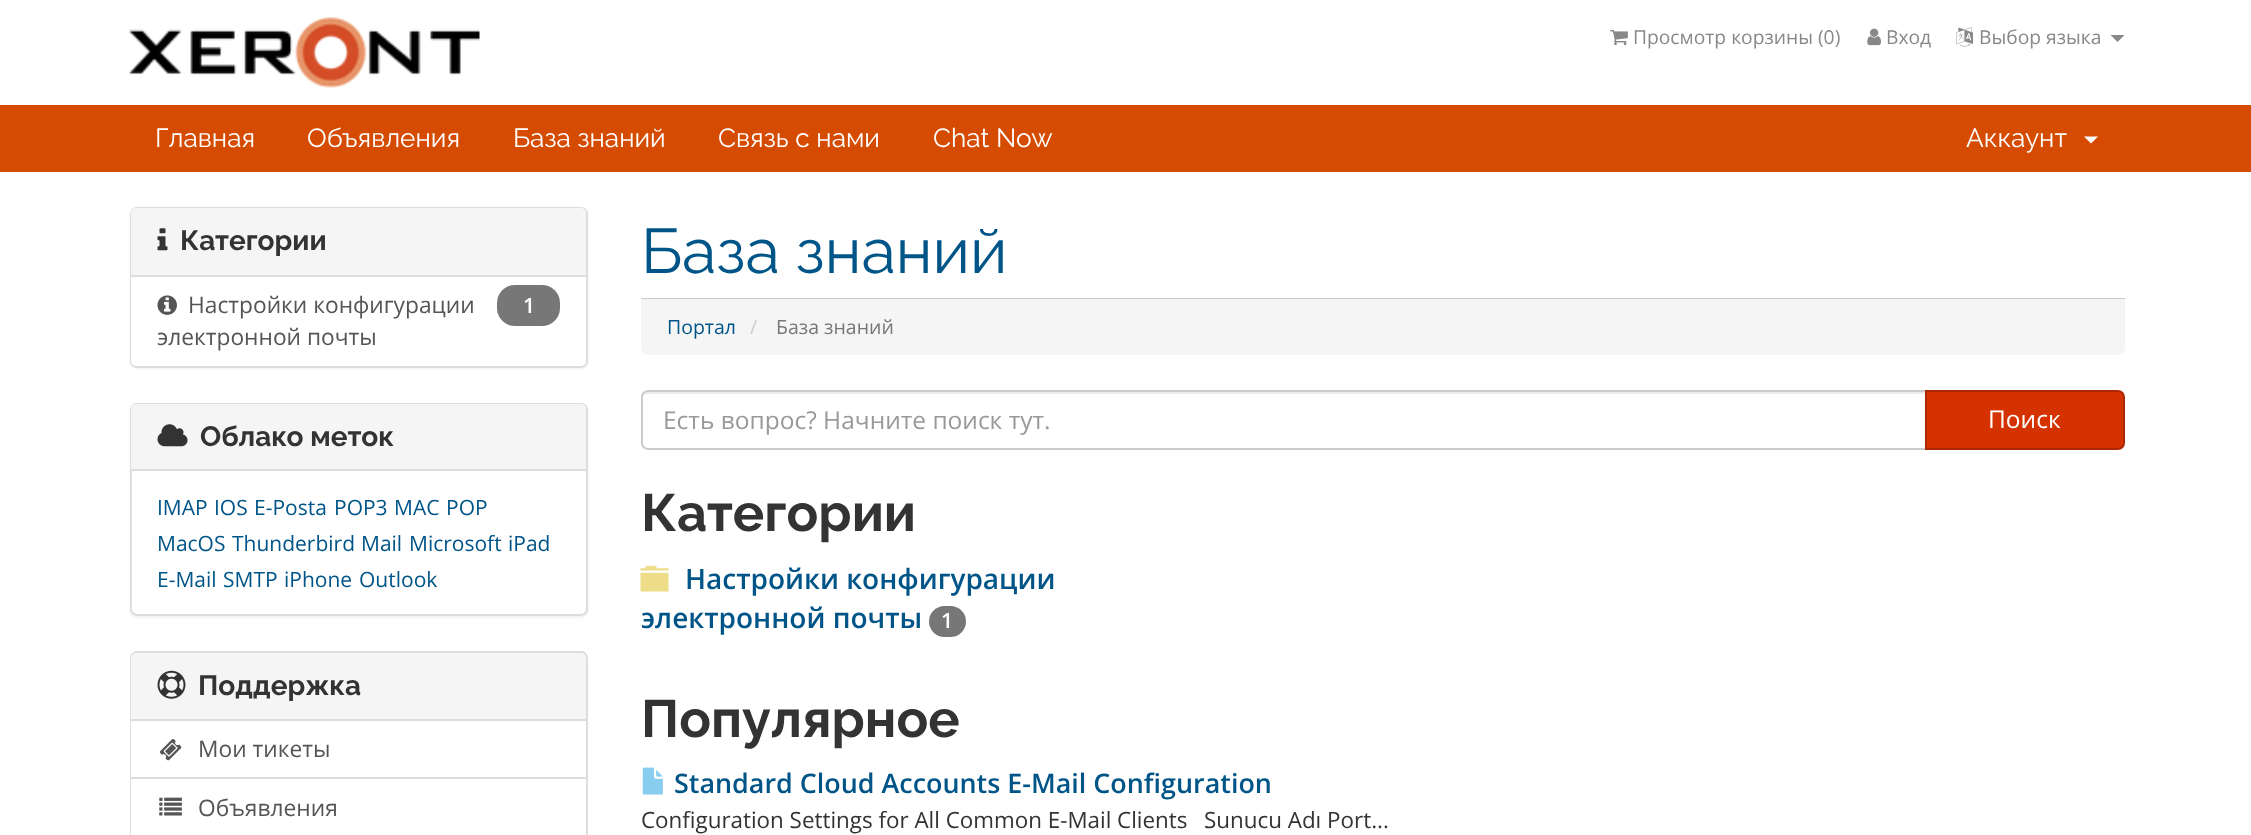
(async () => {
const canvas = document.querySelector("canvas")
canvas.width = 2251
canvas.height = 835
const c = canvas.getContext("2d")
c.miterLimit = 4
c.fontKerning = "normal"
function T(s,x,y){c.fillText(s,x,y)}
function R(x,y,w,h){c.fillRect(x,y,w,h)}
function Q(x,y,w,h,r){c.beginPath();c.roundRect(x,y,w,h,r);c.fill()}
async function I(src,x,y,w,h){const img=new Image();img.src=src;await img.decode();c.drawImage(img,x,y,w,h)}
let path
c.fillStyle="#fff"
R(0,0,2251,835)
await I("1.png",129,17,351,71)
await I("2.png",1610,30,18,16)
c.font="19.25px Open Sans"
c.fillStyle="#888"
T("Просмотр корзины (0)",1633,44)
await I("3.png",1867,28,14,18)
T("Вход",1886,44)
await I("4.png",1956,27,17,20)
T("Выбор языка",1979,44)
path = new Path2D("M2110.5 35h14l-7 7z")
c.fill(path)
c.fillStyle="#d44b01"
R(0,105,2251,67)
c.font="26.25px Raleway"
c.fillStyle="#fff"
T("Главная",155,147)
T("Объявления",307,147)
T("База знаний",513,147)
T("Связь с нами",718,147)
T("Chat Now",933,147)
T("Аккаунт",1966,147)
path = new Path2D("M2084 136.5h14l-7 7z")
c.fill(path)
c.fillStyle="#0000000d"
c.filter="blur(1px)"
c.beginPath()
c.roundRect(130,208,458,161,7)
c.fill()
c.filter="none"
c.beginPath()
c.roundRect(131,208,456,159,6)
c.strokeStyle="#ddd"
c.lineWidth=2
c.stroke()
c.fillStyle="#f5f5f5"
c.beginPath()
c.roundRect(131,208,455,69,[5,5,0,0])
c.fill()
c.fillStyle="#ddd"
R(131,275,455,2)
await I("5.png",157,228,11,23)
c.font="bold 28px Raleway"
c.fillStyle="#333"
T("Категории",180,250)
c.fillStyle="#fff"
c.beginPath()
c.roundRect(131,277,455,89,[0,0,5,5])
c.fill()
await I("6.png",157,295,20,20)
c.font="22.75px Open Sans"
c.fillStyle="#555"
T("Настройки конфигурации",188,313)
c.fillStyle="#777"
Q(497,285,63,41,18)
c.font="600 21px Open Sans"
c.fillStyle="#fff"
T("1",523,313)
c.font="22.75px Open Sans"
c.fillStyle="#555"
T("электронной почты",157,345)
c.fillStyle="#ccc"
R(641,298,1484,1)
c.font="63px Raleway"
c.fillStyle="#058"
T("База знаний",641,273)
c.fillStyle="#f5f5f5"
c.beginPath()
c.roundRect(641,299,1484,56,[0,0,7,7])
c.fill()
c.font="19.5px Open Sans"
c.fillStyle="#058"
T("Портал",667,334)
c.fillStyle="#ccc"
T("/",750,334)
c.fillStyle="#777"
T("База знаний",776,334)
c.fillStyle="#0000000d"
c.filter="blur(1px)"
c.beginPath()
c.roundRect(130,404,458,214,7)
c.fill()
c.filter="none"
c.fillStyle="#fff"
c.beginPath()
c.roundRect(131,404,456,211,6)
c.fill()
c.stroke()
c.fillStyle="#f5f5f5"
c.beginPath()
c.roundRect(131,404,455,67,[5,5,0,0])
c.fill()
c.fillStyle="#ddd"
R(131,469,455,2)
await I("7.png",157,424,31,23)
c.font="bold 28px Raleway"
c.fillStyle="#333"
T("Облако меток",200,446)
c.font="21px Open Sans"
c.fillStyle="#058"
T("IMAP",157,515)
T("IOS",214,515)
T("E-Posta",254,515)
T("POP3",334,515)
T("MAC",394,515)
T("POP",446,515)
T("MacOS",157,551)
T("Thunderbird",232,551)
T("Mail",361,551)
T("Microsoft",409,551)
T("iPad",508,551)
T("E-Mail",157,587)
T("SMTP",223,587)
T("iPhone",284,587)
T("Outlook",359,587)
c.beginPath()
c.roundRect(131,652,456,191,6)
c.stroke()
c.fillStyle="#f5f5f5"
c.beginPath()
c.roundRect(131,653,455,68,[5,5,0,0])
c.fill()
c.fillStyle="#ddd"
R(131,719,455,2)
await I("8.png",157,670,29,29)
c.font="bold 28px Raleway"
c.fillStyle="#333"
T("Поддержка",198,695)
c.fillStyle="#fff"
R(131,721,1,56)
c.fillStyle="#ddd"
R(131,777,455,2)
await I("9.png",160,739,22,22)
c.font="22.75px Open Sans"
c.fillStyle="#555"
T("Мои тикеты",198,757)
c.fillStyle="#fff"
R(131,779,1,56)
await I("10.png",159,797,23,19)
c.fillStyle="#555"
T("Объявления",198,816)
c.fillStyle="#ececec"
path = new Path2D("M648 394h1277v-2h-1278c-3 0-5 2-5 5v2c0-3 3-5 6-5z")
c.fill(path)
c.beginPath()
c.roundRect(642,391,1284,58,[6,0,0,6])
c.strokeStyle="#ccc"
c.stroke()
c.font="24.5px Open Sans"
c.fillStyle="#999"
T("Есть вопрос? Начните поиск тут.",663,429)
c.fillStyle="#d43301"
c.beginPath()
c.roundRect(1926,391,198,58,[0,6,6,0])
c.fill()
c.strokeStyle="#ab2800"
c.stroke()
c.fillStyle="#fff"
T("Поиск",1988,428)
c.font="bold 52.5px Raleway"
c.fillStyle="#333"
T("Категории",641,531)
await I("11.png",640,565,29,27)
c.font="600 28px Open Sans"
c.fillStyle="#058"
T("Настройки конфигурации",685,589)
T("электронной почты",641,628)
c.fillStyle="#777"
Q(929,606,37,31,15.5)
c.font="600 21px Open Sans"
c.fillStyle="#fff"
T("1",941,628)
c.font="bold 52.5px Raleway"
c.fillStyle="#333"
T("Популярное",641,737)
await I("12.png",642,767,21,28)
c.font="600 26.9px Open Sans"
c.fillStyle="#058"
T("Standard Cloud Accounts E-Mail Configuration",674,793)
c.font="22.4px Open Sans"
c.fillStyle="#333"
T("Configuration Settings for All Common E-Mail Clients",641,828)
T("Sunucu Adı Port...",1204,828)
})()
